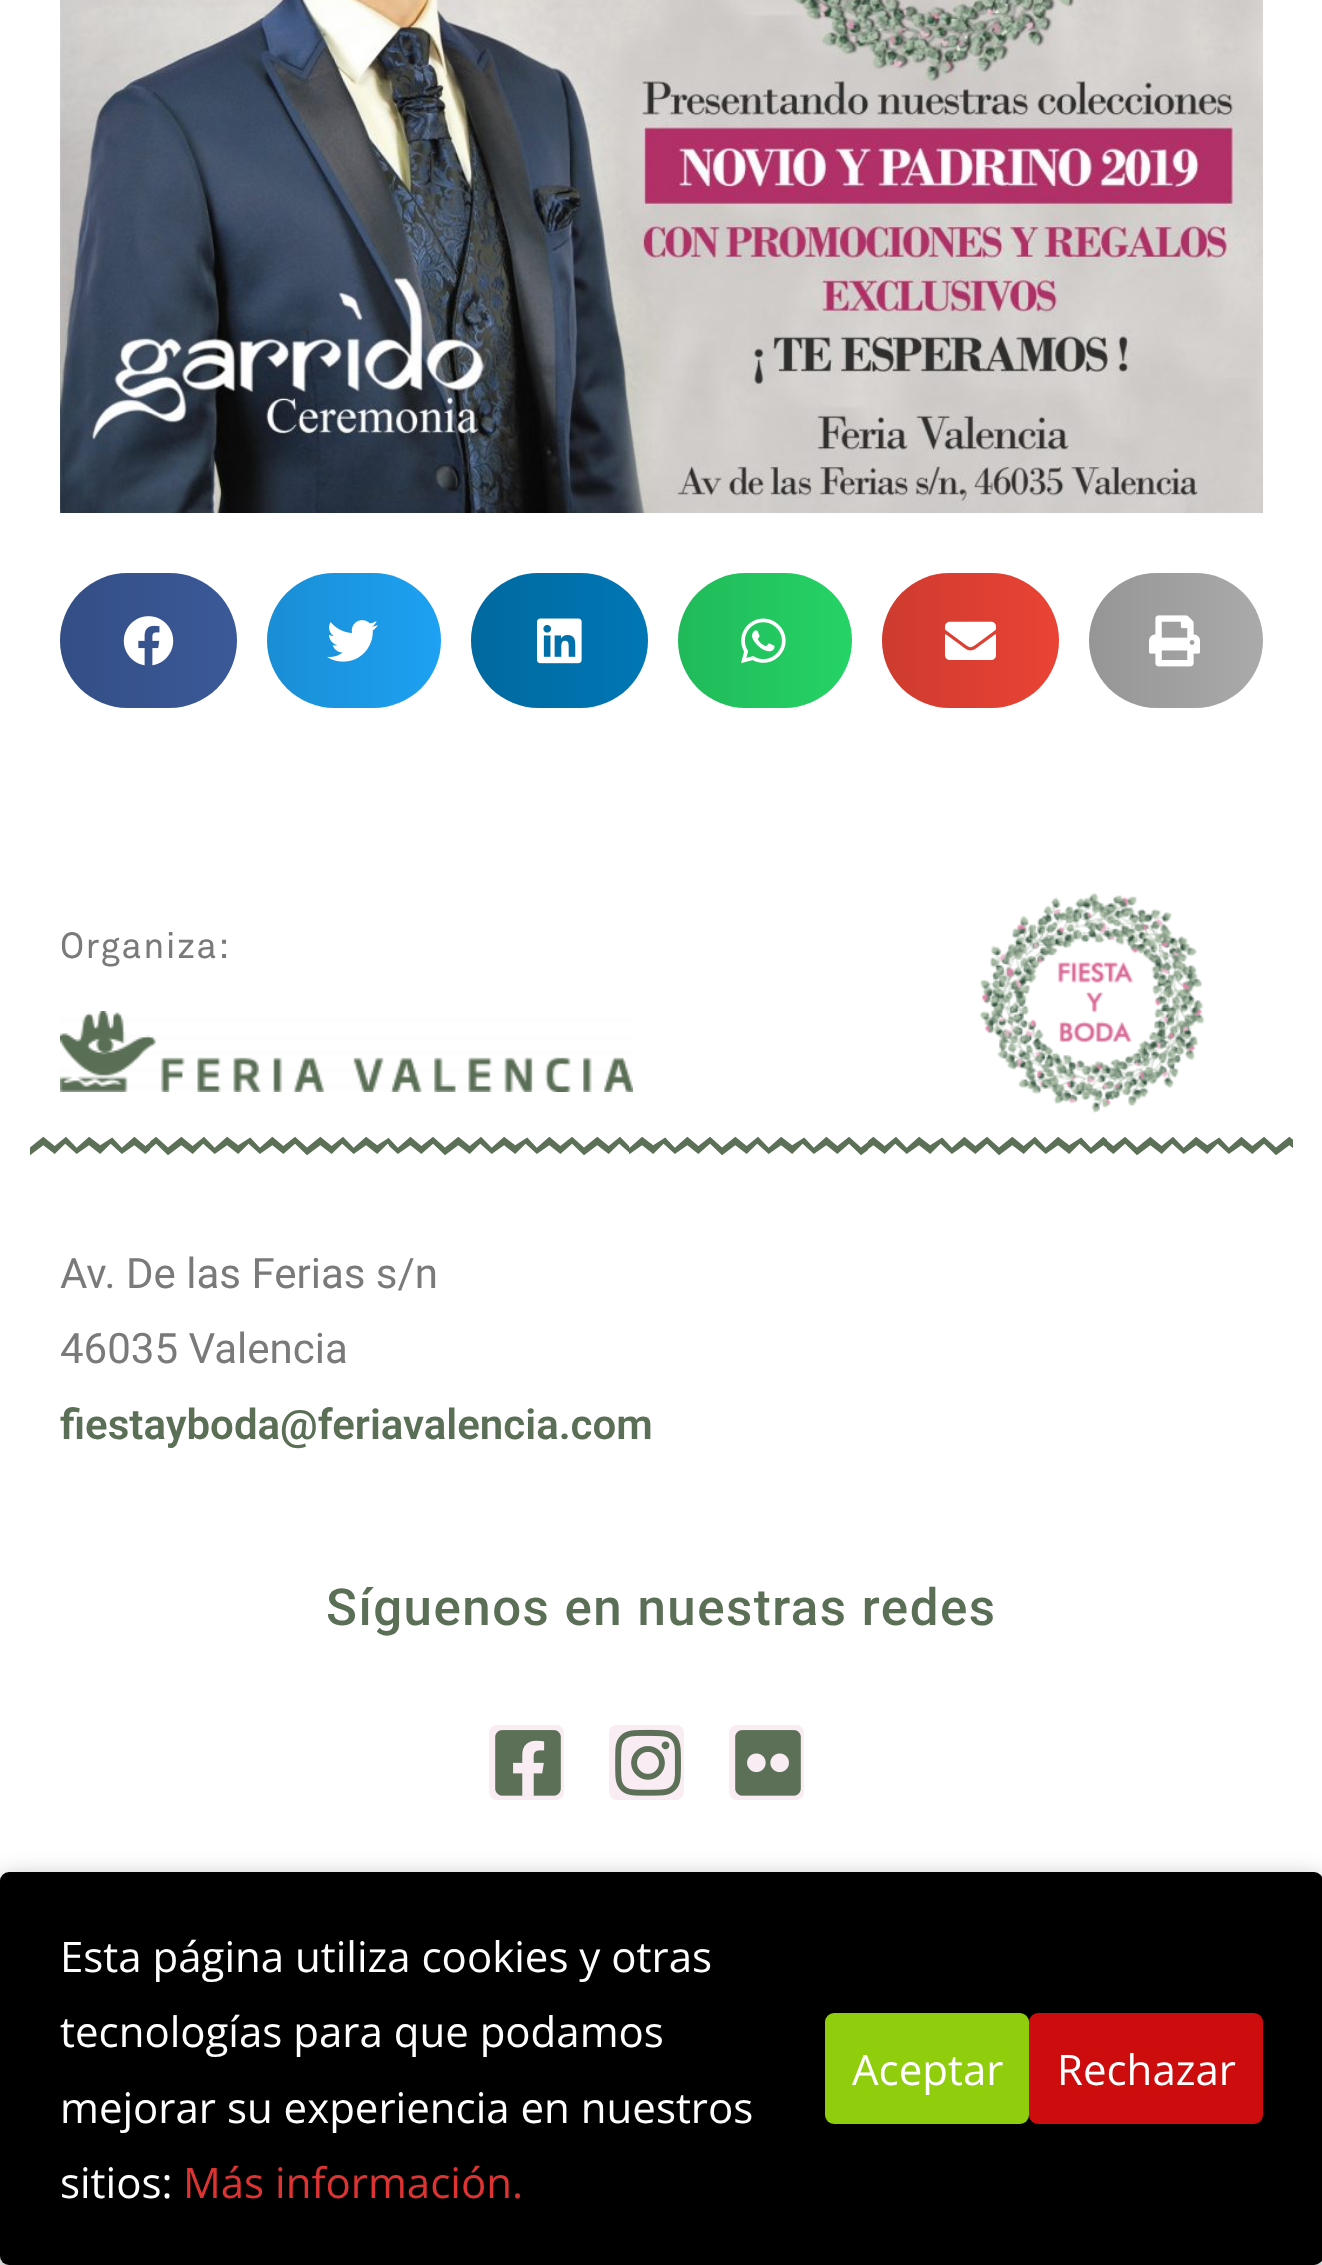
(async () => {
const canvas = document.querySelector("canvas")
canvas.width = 1322
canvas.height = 2265
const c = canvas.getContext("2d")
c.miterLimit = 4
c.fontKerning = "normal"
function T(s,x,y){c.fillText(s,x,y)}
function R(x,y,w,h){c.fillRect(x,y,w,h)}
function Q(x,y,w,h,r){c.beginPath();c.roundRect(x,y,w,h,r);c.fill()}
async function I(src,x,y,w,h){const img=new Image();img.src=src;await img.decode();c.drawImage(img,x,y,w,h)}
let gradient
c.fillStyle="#fff"
R(0,0,1322,2265)
await I("1.png",60,0,1203,513)
c.fillStyle="#3b5998"
Q(60,573,177,135,67.5)
gradient = c.createLinearGradient(60,641,237,641)
gradient.addColorStop(0,"#0000001f")
gradient.addColorStop(1,"#00000000")
c.fillStyle = gradient
Q(60,573,177,135,67.5)
await I("2.png",123,616,51,50)
c.fillStyle="#1da1f2"
Q(267,573,174,135,67.5)
gradient = c.createLinearGradient(267,641,441,641)
gradient.addColorStop(0,"#0000001f")
gradient.addColorStop(1,"#00000000")
c.fillStyle = gradient
Q(267,573,174,135,67.5)
await I("3.png",327,620,51,42)
c.fillStyle="#0077b5"
Q(471,573,177,135,67.5)
gradient = c.createLinearGradient(471,641,648,641)
gradient.addColorStop(0,"#0000001f")
gradient.addColorStop(1,"#00000000")
c.fillStyle = gradient
Q(471,573,177,135,67.5)
await I("4.png",537,618,45,46)
c.fillStyle="#25d366"
Q(678,573,174,135,67.5)
gradient = c.createLinearGradient(678,641,852,641)
gradient.addColorStop(0,"#0000001f")
gradient.addColorStop(1,"#00000000")
c.fillStyle = gradient
Q(678,573,174,135,67.5)
await I("5.png",741,618,45,46)
c.fillStyle="#ea4335"
Q(882,573,177,135,67.5)
gradient = c.createLinearGradient(882,641,1059,641)
gradient.addColorStop(0,"#0000001f")
gradient.addColorStop(1,"#00000000")
c.fillStyle = gradient
Q(882,573,177,135,67.5)
await I("6.png",945,621,51,39)
c.fillStyle="#aaa"
Q(1089,573,174,135,67.5)
gradient = c.createLinearGradient(1089,641,1263,641)
gradient.addColorStop(0,"#0000001f")
gradient.addColorStop(1,"#00000000")
c.fillStyle = gradient
Q(1089,573,174,135,67.5)
await I("7.png",1149,615,51,52)
c.letterSpacing="1.5px"
c.font="36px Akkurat"
c.fillStyle="#7a7a7a"
T("Organiza:",60,958)
await I("8.png",60,1011,573,81)
await I("9.png",979,892,226,221)
await I("10.png",30,1136,1263,20)
c.letterSpacing="0px"
c.font="42px Roboto"
T("Av. De las Ferias s/n",60,1288)
T("46035 Valencia",60,1363)
c.font="600 42px Roboto"
c.fillStyle="#5a6f56"
T("fiestayboda@feriavalencia.com",60,1439)
c.letterSpacing="1.5px"
c.font="500 51px Roboto"
T("Síguenos en nuestras redes",326,1625)
c.fillStyle="#f9ecf2"
Q(489,1725,75,75,8)
await I("11.png",495,1730,66,66)
Q(609,1725,75,75,8)
await I("12.png",615,1729,66,67)
Q(729,1725,75,75,8)
await I("13.png",735,1730,66,66)
c.fillStyle="#00000066"
c.filter="blur(13.5px)"
c.beginPath()
c.roundRect(0,1881,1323,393,9)
c.fill()
c.filter="none"
c.fillStyle="#000"
Q(0,1872,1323,393,9)
c.letterSpacing="0px"
c.font="42px Open Sans"
c.fillStyle="#fff"
T("Esta página utiliza cookies y otras",60,1972)
T("tecnologías para que podamos",60,2047)
T("mejorar su experiencia en nuestros",60,2123)
T("sitios:",60,2198)
c.fillStyle="#d33"
T("Más información.",183,2198)
c.fillStyle="#90cd0d"
Q(825,2013,204,111,9)
c.fillStyle="#fff"
T("Aceptar",852,2085)
c.fillStyle="#cd0d0d"
Q(1029,2013,234,111,9)
c.fillStyle="#fff"
T("Rechazar",1057,2085)
})()
